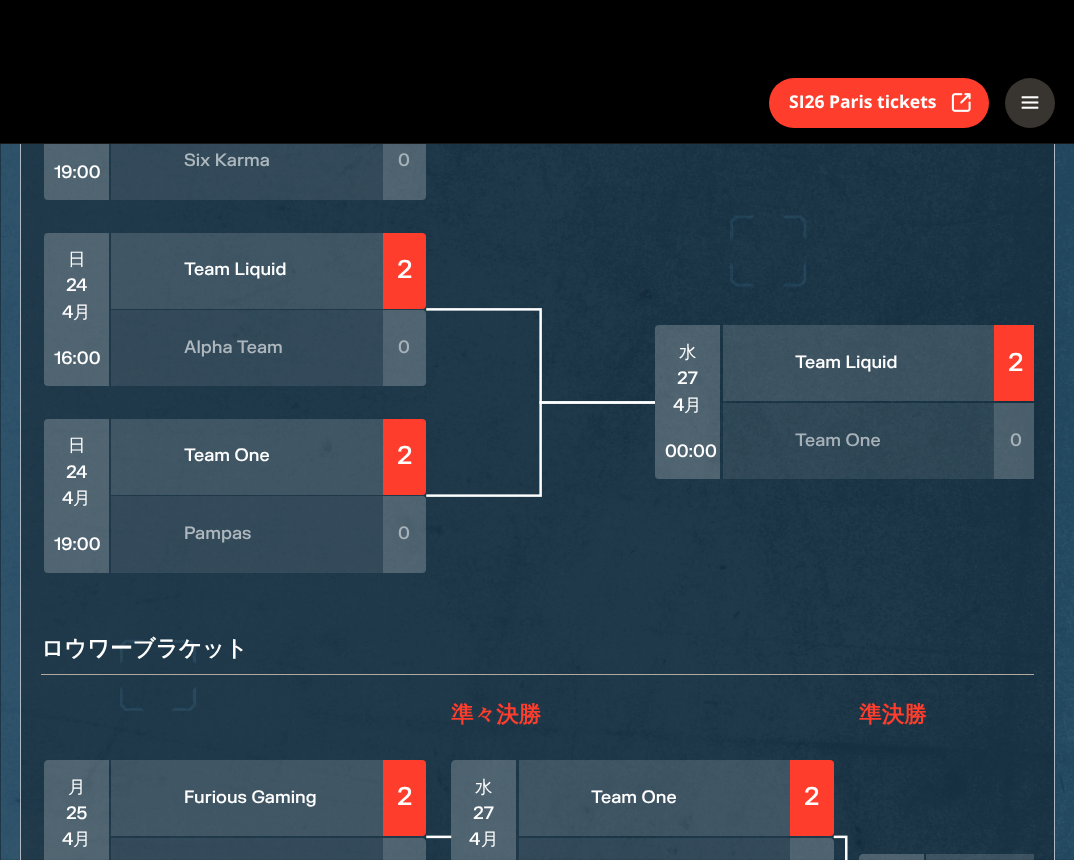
(async () => {
const canvas = document.querySelector("canvas")
canvas.width = 1074
canvas.height = 860
const c = canvas.getContext("2d")
c.miterLimit = 4
c.fontKerning = "normal"
function T(s,x,y){c.fillText(s,x,y)}
function R(x,y,w,h){c.fillRect(x,y,w,h)}
function Q(x,y,w,h,r){c.beginPath();c.roundRect(x,y,w,h,r);c.fill()}
async function I(src,x,y,w,h){const img=new Image();img.src=src;await img.decode();c.drawImage(img,x,y,w,h)}
let path
c.fillStyle="#080707"
R(0,0,1074,860)
await I("1.png",0,144,1074,716)
c.strokeStyle="#b0bac6"
c.strokeRect(20.5,-.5,1034,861)
c.fillStyle="#ffffff38"
c.beginPath()
c.roundRect(383,124,43,76,[0,4,4,0])
c.fill()
c.beginPath()
c.roundRect(44,46,65,154,[4,0,0,4])
c.fill()
c.fillStyle="#000"
R(0,0,1074,143)
c.fillStyle="#181717"
R(0,143,1074,1)
c.fillStyle="#ff3d2c"
Q(769,78,220,50,25)
c.font="bold 17.5px Open Sans"
c.fillStyle="#fefefe"
T("SI26 Paris tickets",789,108)
await I("2.png",951,93,20,19)
c.fillStyle="#383530"
c.beginPath()
c.arc(1030,103,25,0,7)
c.fill()
await I("3.png",1021,96,18,13)
c.fillStyle="#ffffff17"
R(111,144,272,56)
c.font="500 17.5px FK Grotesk"
c.fillStyle="#adb7bd"
T("Six Karma",184,166)
c.fillStyle="#a7b1b8"
T("0",398,166)
c.fillStyle="#fefefe"
T("19:00",54,178)
c.fillStyle="#ffffff38"
c.beginPath()
c.roundRect(44,233,65,153,[4,0,0,4])
c.fill()
c.font="500 17.5px WenQuanYi Zen Hei"
c.fillStyle="#fefefe"
T("日",68,265)
c.font="500 17.5px FK Grotesk"
T("24",66,291)
T("4",62,318)
c.font="500 17.5px WenQuanYi Zen Hei"
T("月",73,318)
c.font="500 17.5px FK Grotesk"
T("16:00",54,364)
c.fillStyle="#ffffff26"
R(111,233,272,76)
c.fillStyle="#fefefe"
T("Team Liquid",184,275)
c.fillStyle="#ff3d2c"
c.beginPath()
c.roundRect(383,233,43,76,[0,4,4,0])
c.fill()
c.font="500 25px FK Grotesk"
c.fillStyle="#fefefe"
T("2",397,278)
c.fillStyle="#ffffff17"
R(111,310,272,76)
c.font="500 17.5px FK Grotesk"
c.fillStyle="#adb7bd"
T("Alpha Team",184,353)
c.fillStyle="#ffffff38"
c.beginPath()
c.roundRect(383,310,43,76,[0,4,4,0])
c.fill()
c.fillStyle="#a7b1b8"
T("0",398,353)
c.fillStyle="#ffffff38"
c.beginPath()
c.roundRect(44,419,65,154,[4,0,0,4])
c.fill()
c.font="500 17.5px WenQuanYi Zen Hei"
c.fillStyle="#fefefe"
T("日",68,451)
c.font="500 17.5px FK Grotesk"
T("24",66,478)
T("4",62,504)
c.font="500 17.5px WenQuanYi Zen Hei"
T("月",73,504)
c.font="500 17.5px FK Grotesk"
T("19:00",54,550)
c.fillStyle="#ffffff26"
R(111,419,272,76)
c.fillStyle="#fefefe"
T("Team One",184,461)
c.fillStyle="#ff3d2c"
c.beginPath()
c.roundRect(383,419,43,76,[0,4,4,0])
c.fill()
c.font="500 25px FK Grotesk"
c.fillStyle="#fefefe"
T("2",397,464)
c.fillStyle="#ffffff17"
R(111,496,272,77)
c.font="500 17.5px FK Grotesk"
c.fillStyle="#adb7bd"
T("Pampas",184,539)
c.fillStyle="#ffffff38"
c.beginPath()
c.roundRect(383,496,43,77,[0,4,4,0])
c.fill()
c.fillStyle="#a7b1b8"
T("0",398,539)
c.fillStyle="#afaba1"
R(41,674,993,1)
await I("4.png",426,308,422,552)
c.fillStyle="#ffffff38"
c.beginPath()
c.roundRect(655,325,65,154,[4,0,0,4])
c.fill()
c.font="500 17.5px WenQuanYi Zen Hei"
c.fillStyle="#fefefe"
T("水",679,358)
c.font="500 17.5px FK Grotesk"
T("27",677,384)
T("4",673,411)
c.font="500 17.5px WenQuanYi Zen Hei"
T("月",684,411)
c.font="500 17.5px FK Grotesk"
T("00:00",665,457)
c.fillStyle="#ffffff26"
R(723,325,271,76)
c.fillStyle="#fefefe"
T("Team Liquid",795,368)
c.fillStyle="#ff3d2c"
R(994,325,40,76)
c.font="500 25px FK Grotesk"
c.fillStyle="#fefefe"
T("2",1008,371)
c.fillStyle="#ffffff17"
R(723,403,271,76)
c.font="500 17.5px FK Grotesk"
c.fillStyle="#a7b1b8"
T("Team One",795,446)
c.fillStyle="#ffffff38"
R(994,403,40,76)
c.fillStyle="#a7b1b8"
T("0",1010,446)
c.font="bold 22.5px WenQuanYi Zen Hei"
c.fillStyle="#fefefe"
T("ロウワーブラケット",41,656)
c.fillStyle="#ff3d2c"
T("準々決勝",451,722)
c.fillStyle="#ffffff38"
path = new Path2D("M455 760h61v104h-61c-2 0-4-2-4-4v-96c0-2 2-4 4-4z")
c.fill(path)
c.font="500 17.5px WenQuanYi Zen Hei"
c.fillStyle="#fefefe"
T("水",475,793)
c.font="500 17.5px FK Grotesk"
T("27",473,819)
T("4",469,845)
c.font="500 17.5px WenQuanYi Zen Hei"
T("月",481,845)
c.fillStyle="#ffffff26"
R(519,760,271,76)
c.font="500 17.5px FK Grotesk"
c.fillStyle="#fefefe"
T("Team One",591,803)
c.fillStyle="#ff3d2c"
c.beginPath()
c.roundRect(790,760,44,76,[0,4,4,0])
c.fill()
c.font="500 25px FK Grotesk"
c.fillStyle="#fefefe"
T("2",804,805)
c.fillStyle="#ffffff17"
R(519,838,271,22)
c.fillStyle="#ffffff38"
path = new Path2D("M790 838h40c2 0 4 2 4 4v18c0 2-2 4-4 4h-40z")
c.fill(path)
c.font="bold 22.5px WenQuanYi Zen Hei"
c.fillStyle="#ff3d2c"
T("準決勝",859,722)
c.fillStyle="#ffffff38"
path = new Path2D("M863 854h61v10h-61c-2 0-4-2-4-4v-2c0-2 2-4 4-4z")
c.fill(path)
c.fillStyle="#ffffff26"
R(926,854,108,6)
c.fillStyle="#ffffff38"
path = new Path2D("M48 760h61v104h-61c-2 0-4-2-4-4v-96c0-2 2-4 4-4z")
c.fill(path)
c.font="500 17.5px WenQuanYi Zen Hei"
c.fillStyle="#fefefe"
T("月",68,793)
c.font="500 17.5px FK Grotesk"
T("25",66,819)
T("4",62,845)
c.font="500 17.5px WenQuanYi Zen Hei"
T("月",73,845)
c.fillStyle="#ffffff26"
R(111,760,272,76)
c.font="500 17.5px FK Grotesk"
c.fillStyle="#fefefe"
T("Furious Gaming",184,803)
c.fillStyle="#ff3d2c"
c.beginPath()
c.roundRect(383,760,43,76,[0,4,4,0])
c.fill()
c.font="500 25px FK Grotesk"
c.fillStyle="#fefefe"
T("2",397,805)
c.fillStyle="#ffffff17"
R(111,838,272,22)
c.fillStyle="#ffffff38"
path = new Path2D("M383 838h39c2 0 4 2 4 4v18c0 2-2 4-4 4h-39z")
c.fill(path)
})()
